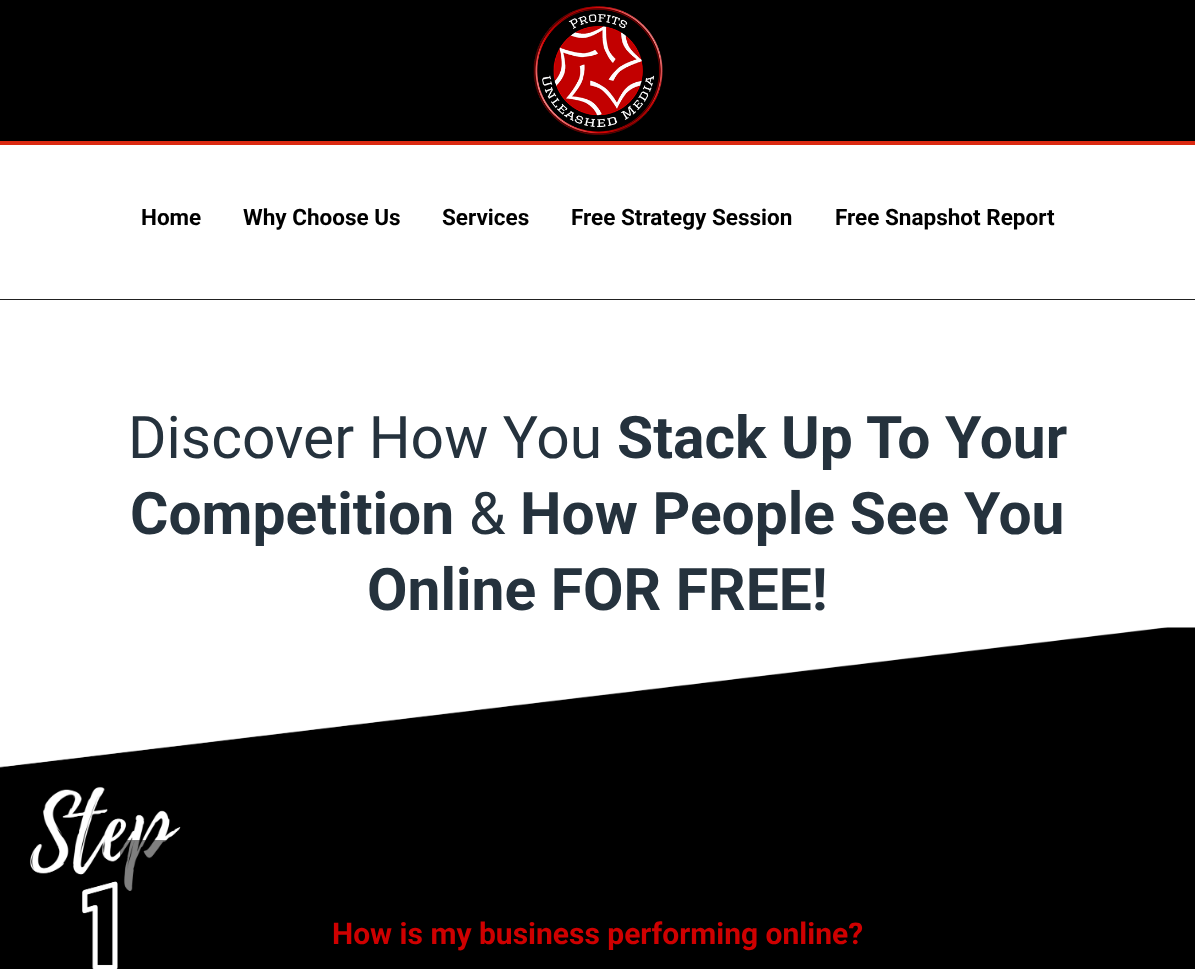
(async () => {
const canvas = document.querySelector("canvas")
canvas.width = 1195
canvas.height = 969
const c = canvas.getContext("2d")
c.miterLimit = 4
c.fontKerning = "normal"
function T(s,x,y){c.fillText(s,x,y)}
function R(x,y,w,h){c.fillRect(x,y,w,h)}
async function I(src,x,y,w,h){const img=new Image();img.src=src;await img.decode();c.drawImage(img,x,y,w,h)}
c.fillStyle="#fff"
R(0,0,1195,969)
c.fillStyle="#000"
R(0,0,1195,141)
c.fillStyle="#db2911"
R(0,141,1195,4)
await I("1.png",533,6,130,129)
c.fillStyle="#212121"
R(0,299,1195,1)
c.font="bold 22.5px Roboto"
c.fillStyle="#000"
T("Home",141,225)
T("Why Choose Us",243,225)
T("Services",442,225)
T("Free Strategy Session",571,225)
T("Free Snapshot Report",835,225)
c.font="58.75px Roboto"
c.fillStyle="#25323d"
T("Discover How You",128,458)
c.font="bold 58.75px Roboto"
T("Stack Up To Your",617,458)
T("Competition",130,534)
c.font="58.75px Roboto"
T("&",469,534)
c.font="bold 58.75px Roboto"
T("How People See You",520,534)
T("Online FOR FREE!",367,610)
await I("2.png",0,627,1195,342)
c.fillStyle="#00000080"
R(120,840,47,51)
c.font="bold 30px Roboto"
c.fillStyle="#cf0000"
T("How is my business performing online?",332,944)
})()
